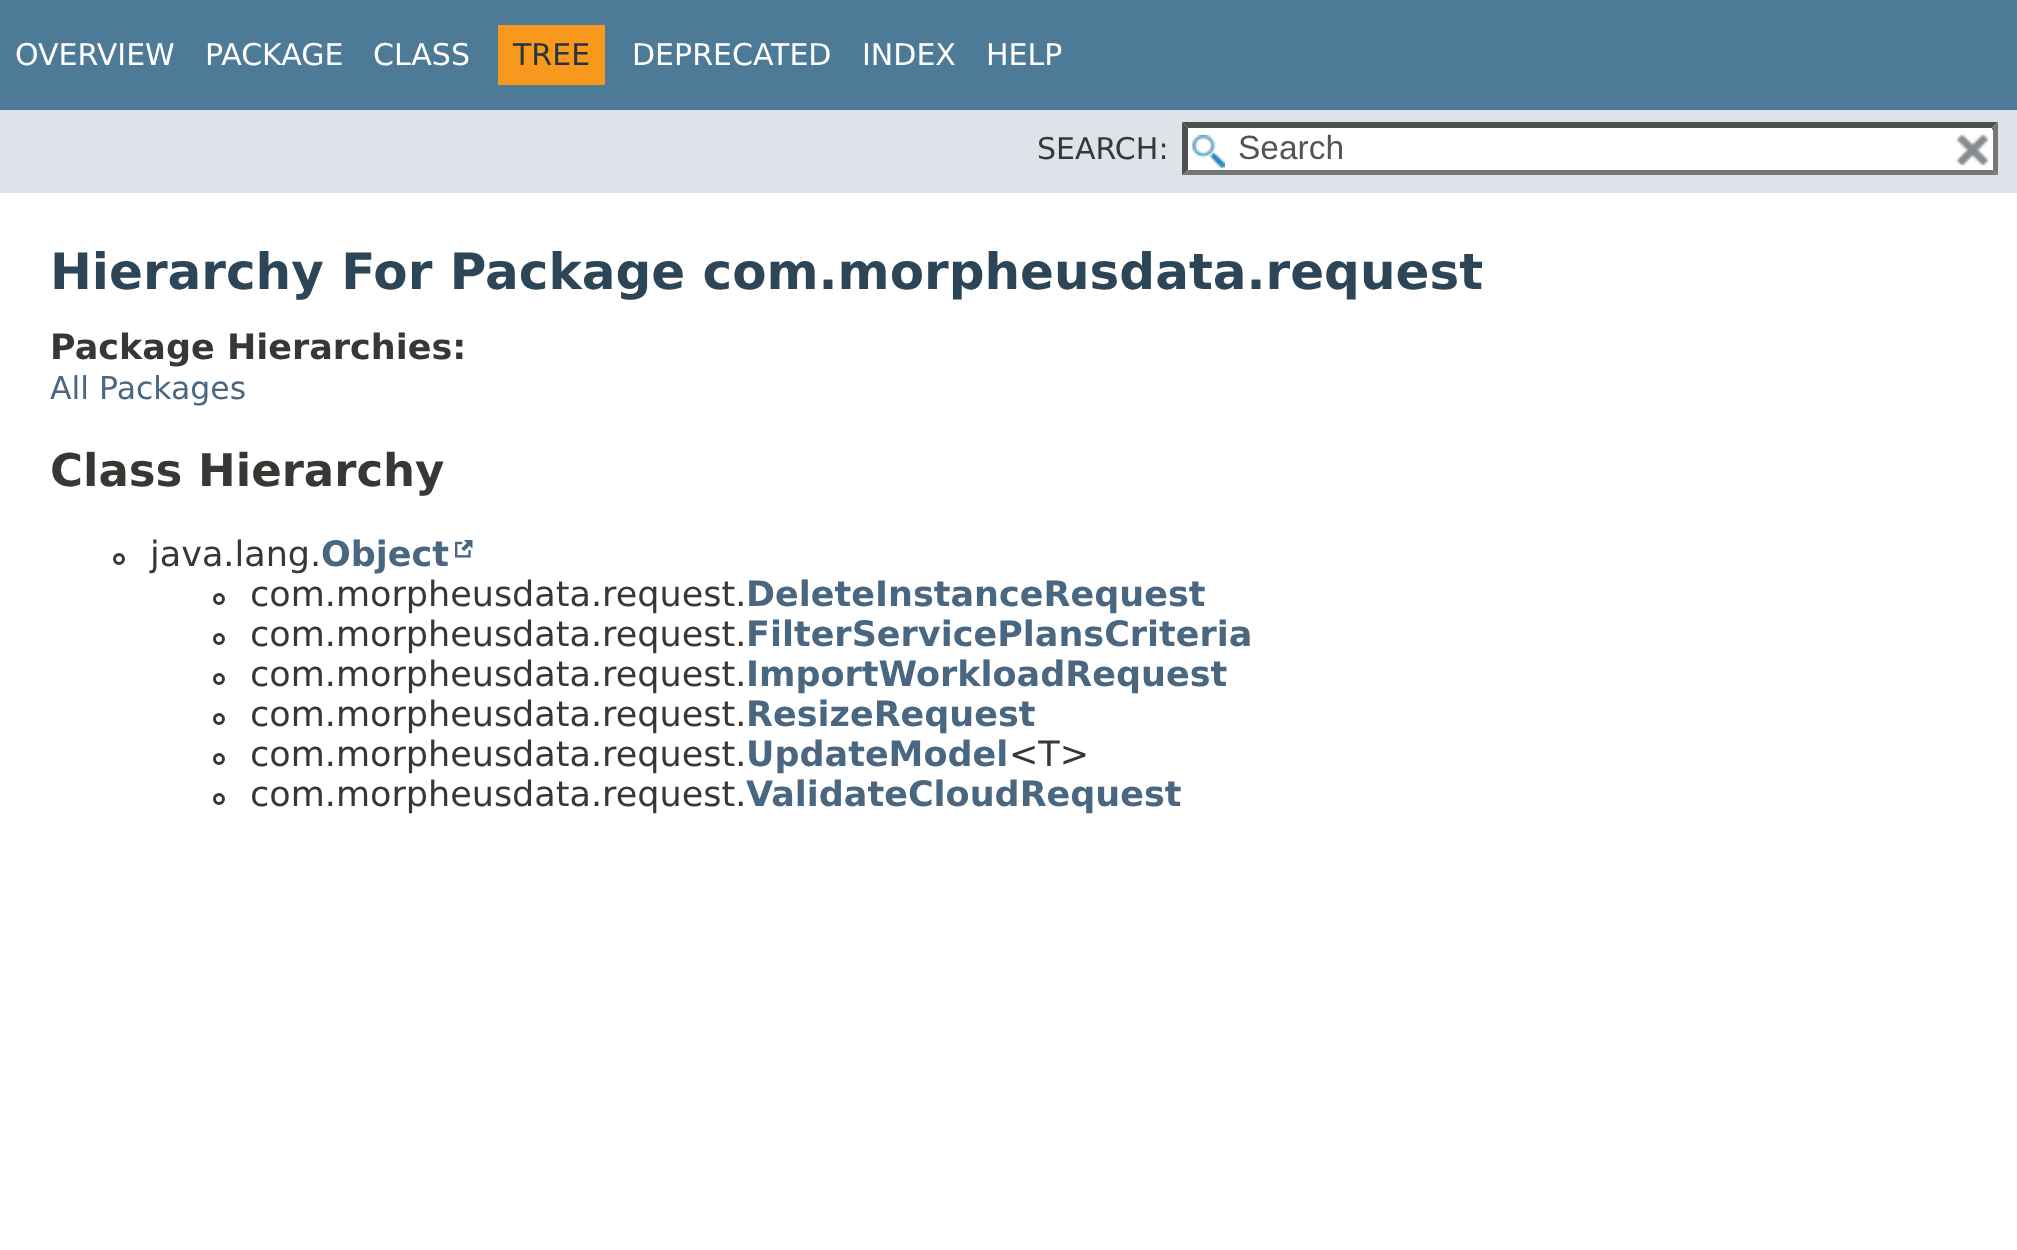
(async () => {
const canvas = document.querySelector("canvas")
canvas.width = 2017
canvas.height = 1250
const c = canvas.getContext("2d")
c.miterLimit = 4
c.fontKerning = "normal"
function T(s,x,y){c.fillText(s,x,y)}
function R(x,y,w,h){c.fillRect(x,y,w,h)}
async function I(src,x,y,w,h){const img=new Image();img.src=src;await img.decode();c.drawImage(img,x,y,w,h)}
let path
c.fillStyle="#fff"
R(0,0,2017,1250)
c.fillStyle="#4d7a97"
R(0,0,2017,110)
c.font="30px DejaVu Sans"
c.fillStyle="#fff"
T("OVERVIEW",15,65)
T("PACKAGE",205,65)
T("CLASS",373,65)
c.fillStyle="#f8981d"
R(498,25,107,60)
c.fillStyle="#253441"
T("TREE",513,65)
c.fillStyle="#fff"
T("DEPRECATED",632,65)
T("INDEX",862,65)
T("HELP",986,65)
c.fillStyle="#dee3e9"
R(0,110,2017,83)
c.fillStyle="#353833"
T("SEARCH:",1037,159)
c.fillStyle="#fff"
R(1183,123,815,52)
await I("1.png",1192,135,33,33)
c.fillStyle="#4f4f4f"
path = new Path2D("M1182 122h816l-6 6h-804z")
c.fill(path)
c.fillStyle="#767676"
path = new Path2D("M1998 122v53l-6-5v-42z")
c.fill(path)
path = new Path2D("M1998 175h-816l6-5h804z")
c.fill(path)
c.fillStyle="#4f4f4f"
path = new Path2D("M1182 175v-53l6 6v42z")
c.fill(path)
c.font="33.5px Liberation Sans"
c.fillStyle="#545454"
T("Search",1238,159)
c.fillStyle="#fff"
R(1992,130,1,40)
await I("2.png",1956,134,33,32)
c.font="bold 50px DejaVu Sans"
c.fillStyle="#2c4557"
T("Hierarchy For Package com.morpheusdata.request",50,289)
c.font="bold 35px DejaVu Sans"
c.fillStyle="#353833"
T("Package Hierarchies:",50,359)
c.font="31.5px DejaVu Sans"
c.fillStyle="#4a6782"
T("All Packages",50,399)
c.font="bold 45px DejaVu Sans"
c.fillStyle="#353833"
T("Class Hierarchy",50,486)
c.beginPath()
c.arc(119,559,4.5,0,7)
c.strokeStyle="#353833"
c.lineWidth=3
c.stroke()
c.font="35px DejaVu Sans"
T("java.lang.",150,566)
c.font="bold 35px DejaVu Sans"
c.fillStyle="#4a6782"
T("Object",321,566)
await I("3.png",455,540,18,18)
c.beginPath()
c.arc(219,599,4.5,0,7)
c.stroke()
c.font="35px DejaVu Sans"
c.fillStyle="#353833"
T("com.morpheusdata.request.",250,606)
c.font="bold 35px DejaVu Sans"
c.fillStyle="#4a6782"
T("DeleteInstanceRequest",746,606)
c.beginPath()
c.arc(219,639,4.5,0,7)
c.stroke()
c.font="35px DejaVu Sans"
c.fillStyle="#353833"
T("com.morpheusdata.request.",250,646)
c.font="bold 35px DejaVu Sans"
c.fillStyle="#4a6782"
T("FilterServicePlansCriteria",746,646)
c.beginPath()
c.arc(219,679,4.5,0,7)
c.stroke()
c.font="35px DejaVu Sans"
c.fillStyle="#353833"
T("com.morpheusdata.request.",250,686)
c.font="bold 35px DejaVu Sans"
c.fillStyle="#4a6782"
T("ImportWorkloadRequest",746,686)
c.beginPath()
c.arc(219,719,4.5,0,7)
c.stroke()
c.font="35px DejaVu Sans"
c.fillStyle="#353833"
T("com.morpheusdata.request.",250,726)
c.font="bold 35px DejaVu Sans"
c.fillStyle="#4a6782"
T("ResizeRequest",746,726)
c.beginPath()
c.arc(219,759,4.5,0,7)
c.stroke()
c.font="35px DejaVu Sans"
c.fillStyle="#353833"
T("com.morpheusdata.request.",250,766)
c.font="bold 35px DejaVu Sans"
c.fillStyle="#4a6782"
T("UpdateModel",746,766)
c.font="35px DejaVu Sans"
c.fillStyle="#353833"
T("<T>",1009,766)
c.beginPath()
c.arc(219,799,4.5,0,7)
c.stroke()
T("com.morpheusdata.request.",250,806)
c.font="bold 35px DejaVu Sans"
c.fillStyle="#4a6782"
T("ValidateCloudRequest",746,806)
})()
